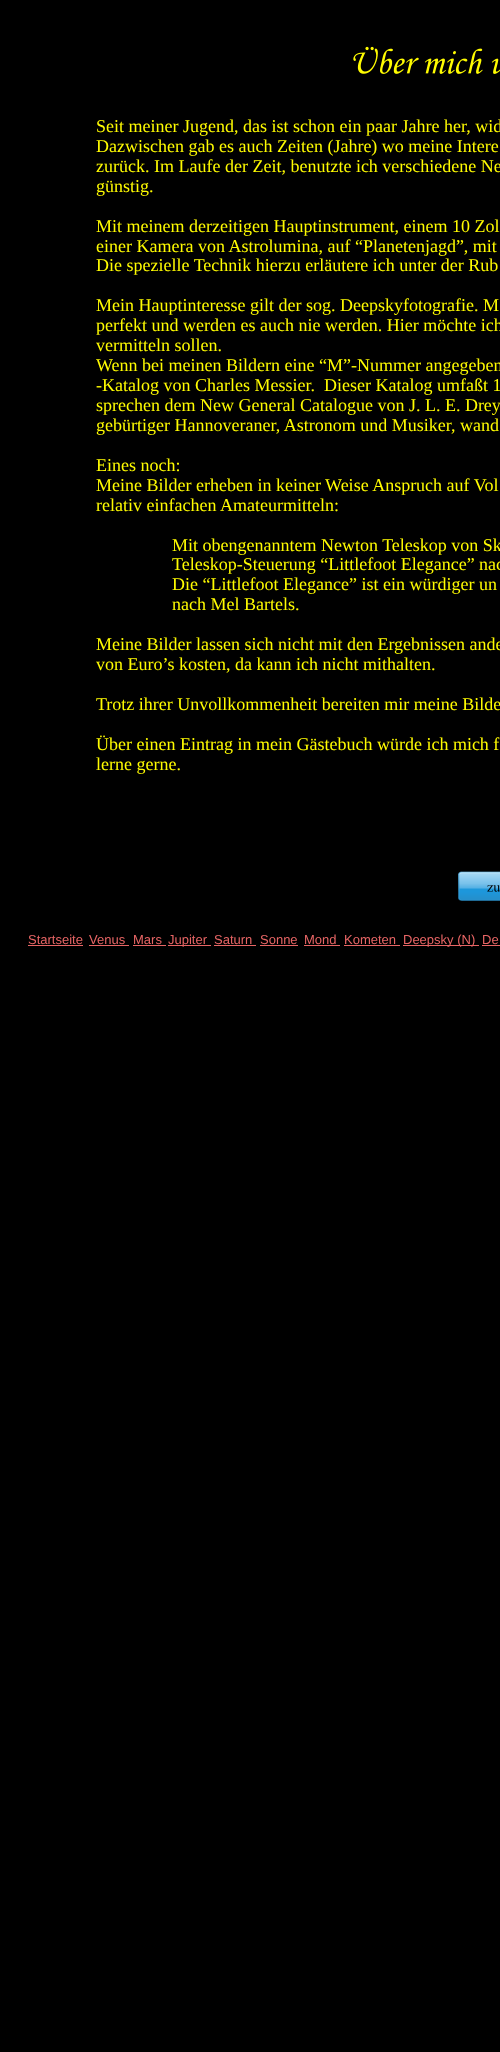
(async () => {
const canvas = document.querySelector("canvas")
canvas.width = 500
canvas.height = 2052
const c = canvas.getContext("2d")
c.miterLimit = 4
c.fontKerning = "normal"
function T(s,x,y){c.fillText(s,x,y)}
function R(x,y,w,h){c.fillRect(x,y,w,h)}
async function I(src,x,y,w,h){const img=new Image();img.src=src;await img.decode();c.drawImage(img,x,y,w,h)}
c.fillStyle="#000"
R(0,0,500,2052)
await I("1.png",353,46,147,28)
c.font="18px Liberation Serif"
c.fillStyle="#fffc00"
T("Seit meiner Jugend, das ist schon ein paar Jahre her, wid",96,132)
T("Dazwischen gab es auch Zeiten (Jahre) wo meine Intere",96,152)
T("zurück. Im Laufe der Zeit, benutzte ich verschiedene Ne",96,172)
T("günstig.",96,192)
T("Mit meinem derzeitigen Hauptinstrument, einem 10 Zol",96,232)
T("einer Kamera von Astrolumina, auf “Planetenjagd”, mit",96,252)
T("Die spezielle Technik hierzu erläutere ich unter der Rub",96,271)
T("Mein Hauptinteresse gilt der sog. Deepskyfotografie. M",96,311)
T("perfekt und werden es auch nie werden. Hier möchte ich",96,331)
T("vermitteln sollen.",96,351)
T("Wenn bei meinen Bildern eine “M”-Nummer angegeben",96,371)
T("-Katalog von Charles Messier.  Dieser Katalog umfaßt 1",96,391)
T("sprechen dem New General Catalogue von J. L. E. Drey",96,411)
T("gebürtiger Hannoveraner, Astronom und Musiker, wand",96,431)
T("Eines noch:",96,471)
T("Meine Bilder erheben in keiner Weise Anspruch auf Vol",96,491)
T("relativ einfachen Amateurmitteln:",96,511)
T("Mit obengenanntem Newton Teleskop von Sk",172,551)
T("Teleskop-Steuerung “Littlefoot Elegance” nac",172,570)
T("Die “Littlefoot Elegance” ist ein würdiger un",172,590)
T("nach Mel Bartels.",172,610)
T("Meine Bilder lassen sich nicht mit den Ergebnissen ande",96,650)
T("von Euro’s kosten, da kann ich nicht mithalten.",96,670)
T("Trotz ihrer Unvollkommenheit bereiten mir meine Bilde",96,710)
T("Über einen Eintrag in mein Gästebuch würde ich mich f",96,750)
T("lerne gerne.",96,770)
await I("2.png",458,871,42,30)
c.font="13px Liberation Sans"
c.fillStyle="#e76565"
T("Startseite",28,944)
R(28,945,55,1)
T("Venus",89,944)
R(89,945,40,1)
T("Mars",133,944)
R(133,945,33,1)
R(168,945,43,1)
T("Jupiter",168,944)
T("Saturn",214,944)
R(214,945,42,1)
T("Sonne",260,944)
R(260,945,38,1)
T("Mond",304,944)
R(304,945,36,1)
T("Kometen",344,944)
R(344,945,56,1)
R(403,945,76,1)
T("Deepsky (N)",403,944)
T("De",482,944)
R(482,945,18,1)
})()
